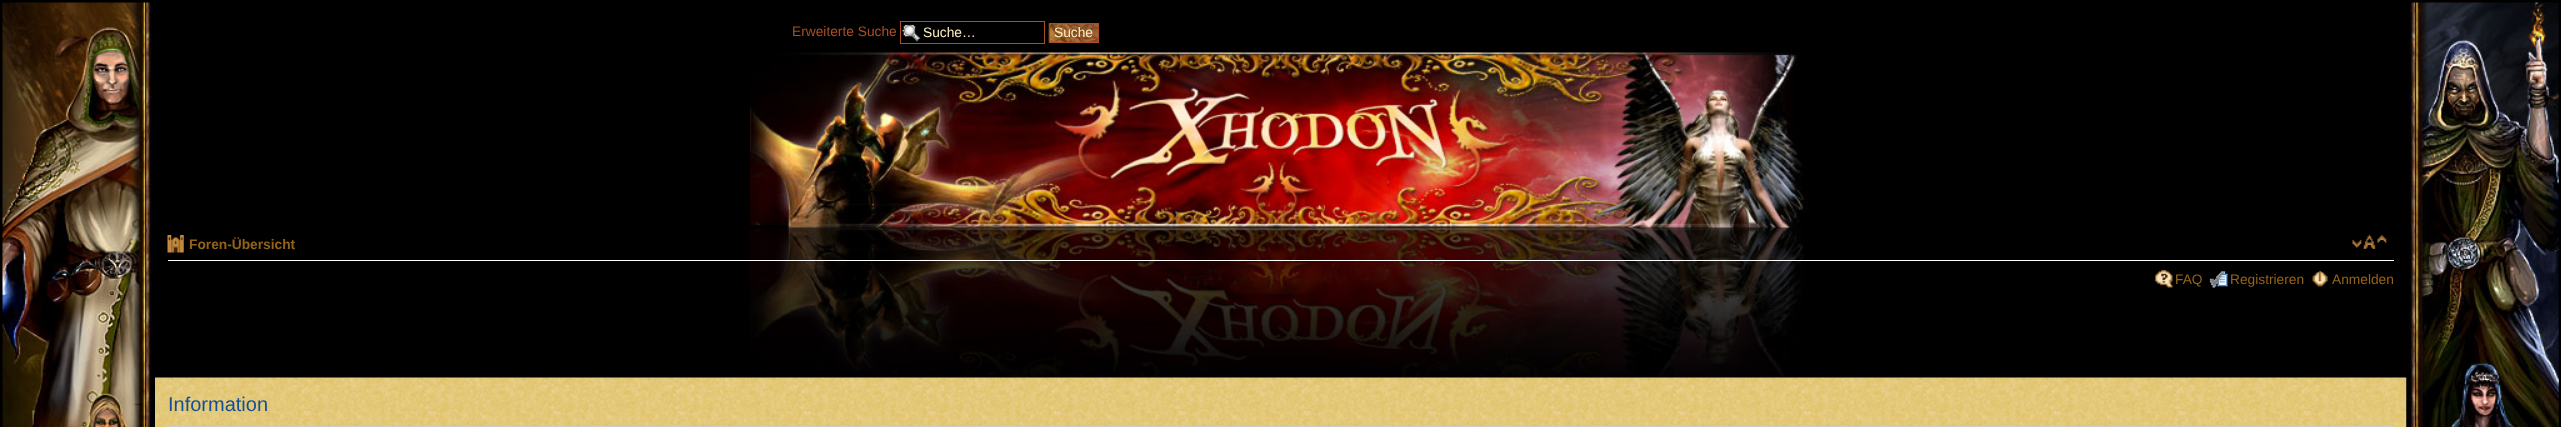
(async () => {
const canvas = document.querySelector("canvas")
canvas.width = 2561
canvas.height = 427
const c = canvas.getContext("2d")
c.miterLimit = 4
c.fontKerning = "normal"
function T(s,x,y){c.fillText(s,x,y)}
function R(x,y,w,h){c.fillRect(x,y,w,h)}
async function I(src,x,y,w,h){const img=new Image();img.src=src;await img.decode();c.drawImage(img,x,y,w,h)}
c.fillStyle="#000"
R(0,0,2561,427)
await I("1.png",2,2,151,425)
await I("2.png",750,227,1054,150)
c.font="13.75px Liberation Sans"
c.fillStyle="#ab4e25"
T("Erweiterte Suche",792,36)
await I("3.png",902,24,19,18)
c.strokeStyle="#ab4e25"
c.strokeRect(900.5,21.5,144,22)
c.fillStyle="#feedc1"
T("Suche…",923,37)
await I("4.png",1048,23,50,20)
c.strokeRect(1049.5,23.5,49,19)
T("Suche",1054,37)
await I("5.png",750,52,1060,176)
c.fillStyle="#fff"
R(168,260,2226,1)
await I("6.png",167,235,17,18)
c.font="bold 13.75px Liberation Sans"
c.fillStyle="#94631a"
T("Foren-Übersicht",189,249)
await I("7.png",2352,234,35,15)
await I("8.png",2154,270,19,18)
c.font="13.75px Liberation Sans"
T("FAQ",2175,284)
await I("9.png",2209,271,19,17)
T("Registrieren",2230,284)
await I("10.png",2312,271,16,16)
T("Anmelden",2332,284)
await I("11.png",155,377,2252,50)
c.fillStyle="#ccc"
R(168,426,2226,1)
c.font="20px Liberation Sans"
c.fillStyle="#115098"
T("Information",168,411)
await I("12.png",2409,2,150,425)
})()
